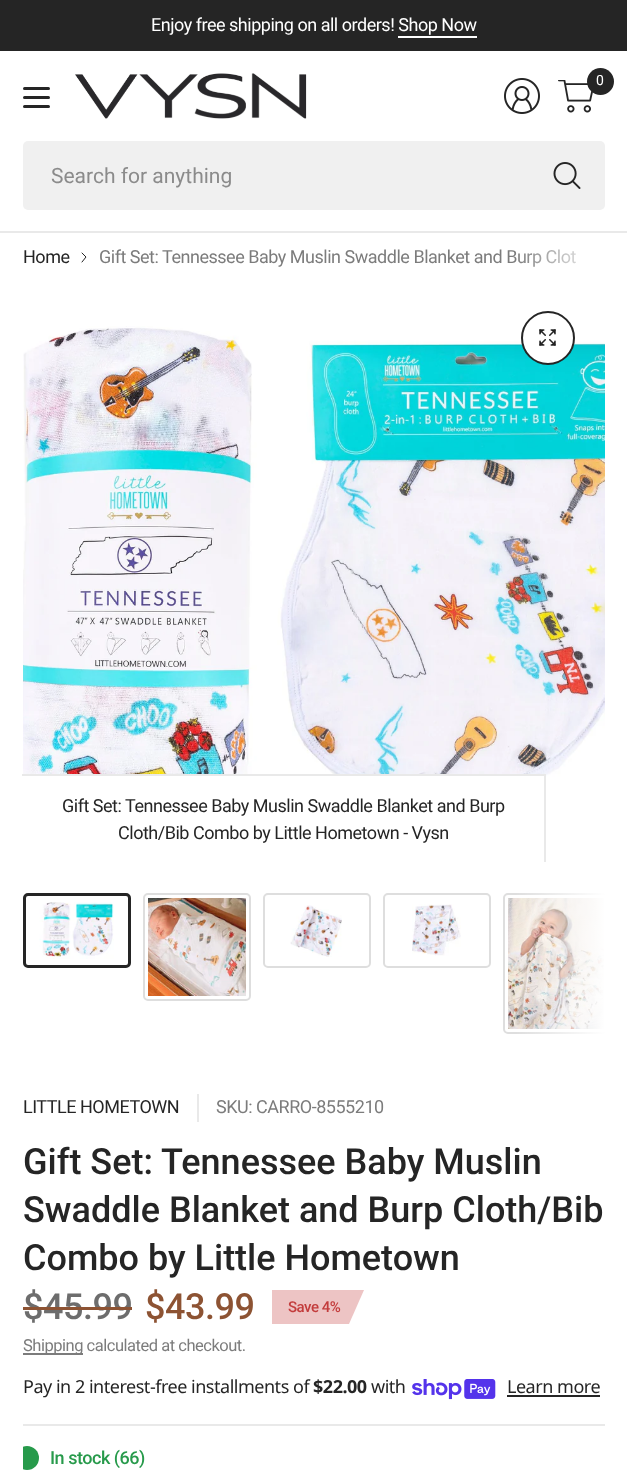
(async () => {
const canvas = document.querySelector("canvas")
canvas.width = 627
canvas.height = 1473
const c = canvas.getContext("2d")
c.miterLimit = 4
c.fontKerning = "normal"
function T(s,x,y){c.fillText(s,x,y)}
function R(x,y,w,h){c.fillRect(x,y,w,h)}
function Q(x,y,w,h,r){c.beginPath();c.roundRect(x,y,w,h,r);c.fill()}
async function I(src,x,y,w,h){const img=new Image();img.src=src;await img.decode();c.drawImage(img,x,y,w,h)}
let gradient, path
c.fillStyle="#fff"
R(0,0,627,1473)
c.fillStyle="#252525"
R(0,0,627,51)
c.letterSpacing="-0.48px"
c.font="18px Roboto"
c.fillStyle="#fff"
T("Enjoy free shipping on all orders! Shop Now",151,31)
R(398,36,79,2)
await I("1.png",75,73,232,46)
await I("2.png",504,78,36,36)
await I("3.png",558,80,35,33)
c.fillStyle="#252525"
c.beginPath()
c.arc(600.5,81.5,13.5,0,7)
c.fill()
c.font="14px Roboto"
c.fillStyle="#fff"
T("0",596,85)
c.fillStyle="#252525"
Q(23,87,27,3,1.5)
Q(23,96,27,3,1.5)
Q(23,105,27,3,1.5)
c.fillStyle="#f0f0f0"
Q(23,141,582,69,5)
c.letterSpacing="0px"
c.font="21px Roboto"
c.fillStyle="#8b8b8b"
T("Search for anything",51,183)
await I("4.png",553,162,28,27)
c.fillStyle="#e9e9e9"
R(0,231,627,2)
c.letterSpacing="-0.48px"
c.font="18px Roboto"
c.fillStyle="#252525"
T("Home",23,263)
path = new Path2D("M82 253l4 4l-4 5")
c.strokeStyle="#252525"
c.lineCap="round"
c.lineJoin="round"
c.stroke(path)
c.fillStyle="#7c7c7c"
T("Gift Set: Tennessee Baby Muslin Swaddle Blanket and Burp Clot",99,263)
gradient = c.createLinearGradient(515,257,605,257)
gradient.addColorStop(0,"#ffffff00")
gradient.addColorStop(1,"#fff")
c.fillStyle = gradient
R(518,249,58,18)
await I("6.png",23,326,582,478)
c.fillStyle="#fff"
c.beginPath()
c.arc(548,338,26,0,7)
c.fill()
c.lineWidth=2
c.stroke()
await I("5.png",539,329,17,17)
R(23,774,523,30)
c.fillStyle="#e9e9e9"
path = new Path2D("M22 774h524l-2 2h-522z")
c.fill(path)
c.fillStyle="#2525251a"
path = new Path2D("M546 774v88h-2v-86z")
c.fill(path)
c.fillStyle="#252525"
T("Gift Set: Tennessee Baby Muslin Swaddle Blanket and Burp",62,812)
T("Cloth/Bib Combo by Little Hometown - Vysn",118,839)
await I("7.png",39,902,75,57)
c.beginPath()
c.roundRect(24.5,894.5,105,72,3.5)
c.lineWidth=3
c.lineJoin="miter"
c.stroke()
await I("8.png",148,898,98,98)
c.beginPath()
c.roundRect(144,894,106,106,4)
c.strokeStyle="#dedede"
c.lineWidth=2
c.stroke()
await I("9.png",290,905,52,52)
c.beginPath()
c.roundRect(264,894,106,73,4)
c.stroke()
await I("10.png",412,904,49,52)
c.beginPath()
c.roundRect(384,894,106,73,4)
c.stroke()
await I("11.png",508,898,96,131)
c.save()
c.beginPath()
c.rect(23,893,582,141)
c.clip()
c.beginPath()
c.roundRect(504,894,106,139,4)
c.stroke()
c.restore()
gradient = c.createLinearGradient(515,963,605,963)
gradient.addColorStop(0,"#ffffff00")
gradient.addColorStop(1,"#fff")
c.fillStyle = gradient
R(517,893,88,141)
c.fillStyle="#e9e9e9"
R(197,1094,2,28)
c.fillStyle="#252525"
T("LITTLE HOMETOWN",23,1113)
c.fillStyle="#7c7c7c"
T("SKU: CARRO-8555210",216,1113)
c.fillStyle="#e9e9e9"
R(23,1424,582,2)
c.letterSpacing="0px"
c.font="500 36px Roboto"
c.fillStyle="#252525"
T("Gift Set: Tennessee Baby Muslin",23,1174)
T("Swaddle Blanket and Burp Cloth/Bib",23,1222)
T("Combo by Little Hometown",23,1270)
c.letterSpacing="-0.48px"
c.fillStyle="#6d6d6d"
T("$45.99",23,1319)
c.fillStyle="#8d5333"
R(23,1307,109,3)
T("$43.99",145,1319)
c.fillStyle="#edc4c4"
path = new Path2D("M272 1290h92l-15 34h-77z")
c.fill(path)
c.font="500 15px Roboto"
c.fillStyle="#c33c3c"
T("Save 4%",288,1312)
c.fillStyle="#7c7c7c"
R(23,1353,60,2)
c.font="16.5px Roboto"
T("Shipping calculated at checkout.",23,1351)
c.font="18px Noto Sans"
c.fillStyle="#252525"
T("Pay in 2 interest-free installments of",23,1393)
c.font="bold 18px Noto Sans"
T("$22.00",313,1393)
c.font="18px Noto Sans"
T("with",371,1393)
await I("12.png",412,1379,84,21)
T("Learn more",507,1393)
R(507,1395,93,2)
c.save()
c.beginPath()
c.rect(23,1094,582,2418)
c.clip()
c.fillStyle="#279a4b"
c.beginPath()
c.arc(27,1458,12,0,7)
c.fill()
c.restore()
c.font="500 18px Roboto"
c.fillStyle="#279a4b"
T("In stock (66)",50,1464)
})()
